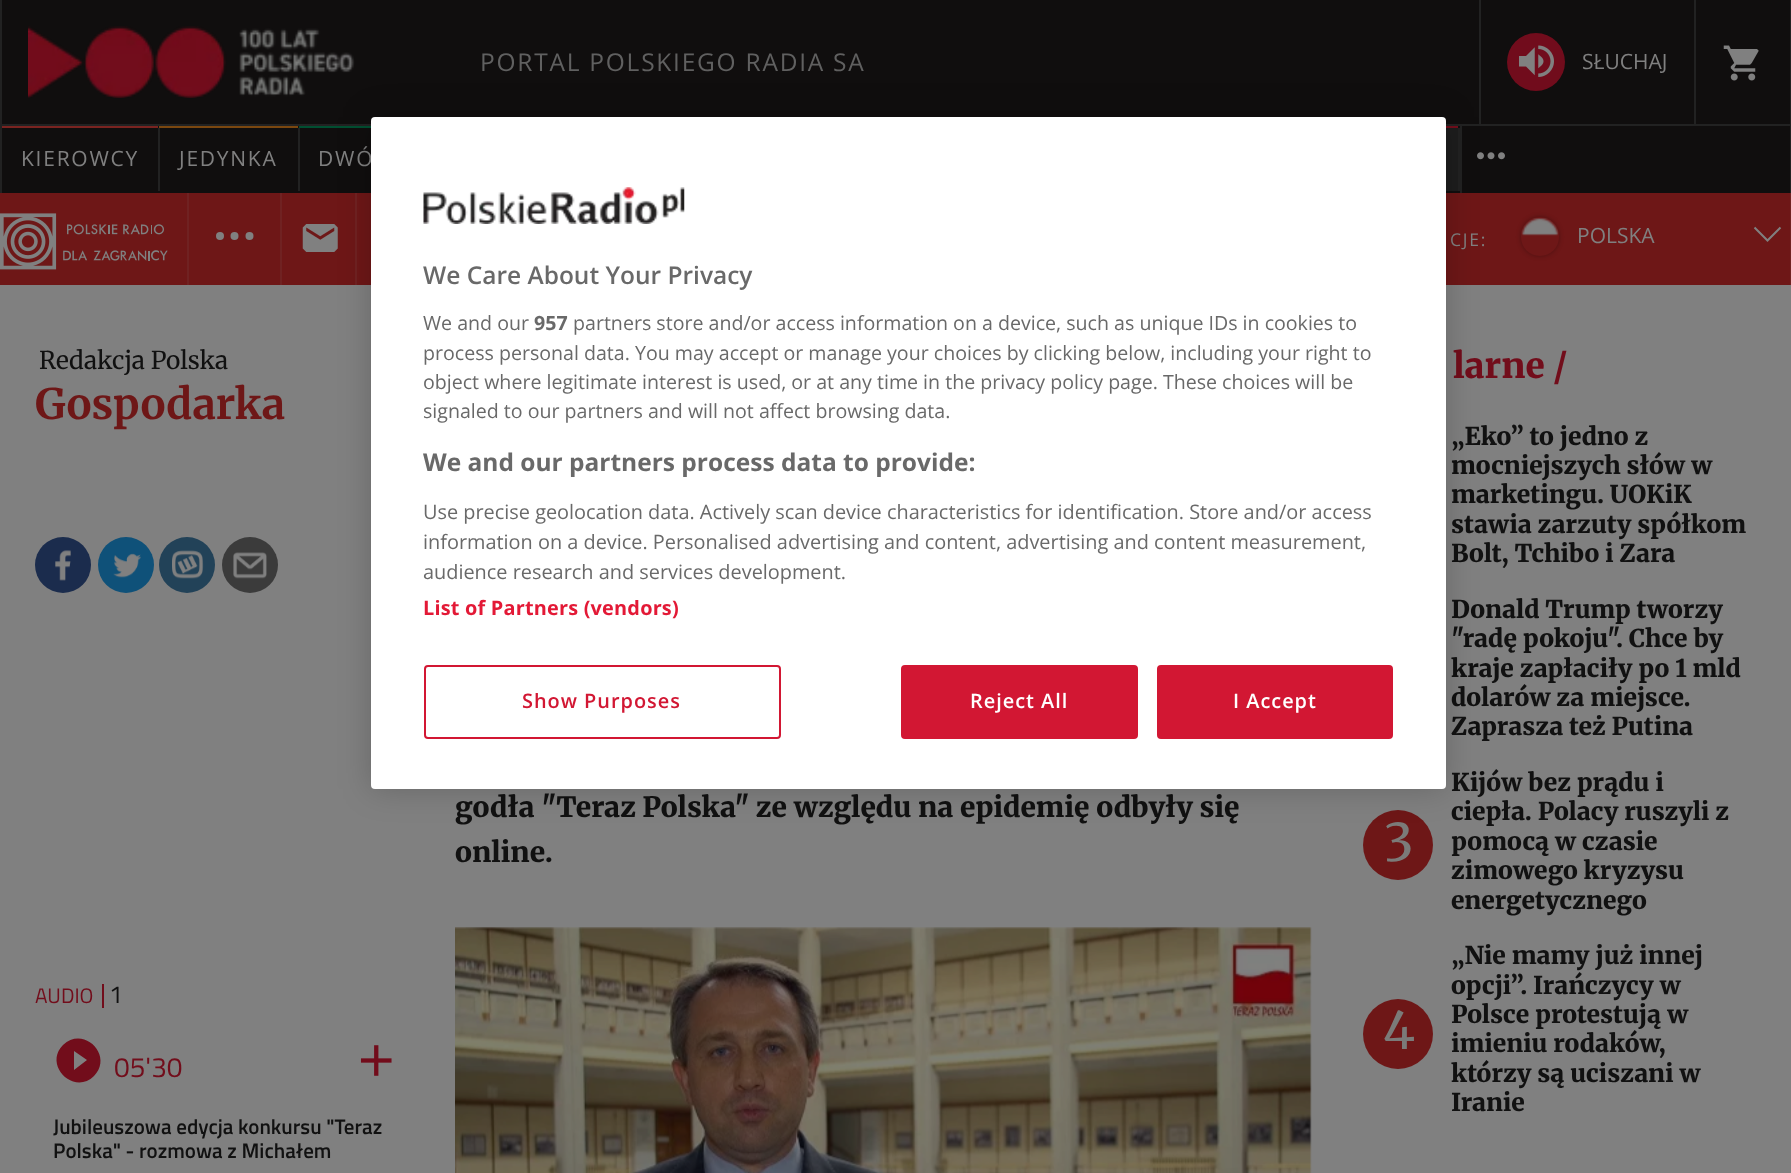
(async () => {
const canvas = document.querySelector("canvas")
canvas.width = 1791
canvas.height = 1173
const c = canvas.getContext("2d")
c.miterLimit = 4
c.fontKerning = "normal"
function T(s,x,y){c.fillText(s,x,y)}
function R(x,y,w,h){c.fillRect(x,y,w,h)}
function Q(x,y,w,h,r){c.beginPath();c.roundRect(x,y,w,h,r);c.fill()}
async function I(src,x,y,w,h){const img=new Image();img.src=src;await img.decode();c.drawImage(img,x,y,w,h)}
let path
c.fillStyle="#808080"
R(0,0,1791,1173)
c.fillStyle="#100e0e"
R(2,0,1788,193)
c.fillStyle="#222"
R(0,124,1791,2)
R(1790,0,1,124)
R(0,0,2,124)
await I("1.png",28,26,327,72)
c.letterSpacing="1.75px"
c.font="24.5px Open Sans"
c.fillStyle="#606060"
T("PORTAL POLSKIEGO RADIA SA",480,71)
c.fillStyle="#222"
R(1694,0,2,124)
R(1479,0,2,124)
c.fillStyle="#710c1c"
c.beginPath()
c.arc(1536,62,29,0,7)
c.fill()
await I("2.png",1519,45,35,32)
c.letterSpacing="0px"
c.font="21px Open Sans"
c.fillStyle="#808080"
T("SŁUCHAJ",1582,69)
await I("3.png",1723,45,36,36)
c.fillStyle="#222"
R(1790,126,1,67)
R(0,126,2,67)
R(158,128,2,63)
c.fillStyle="#7a2320"
R(2,126,156,2)
c.letterSpacing="1.75px"
c.fillStyle="#808080"
T("KIEROWCY",21,166)
c.fillStyle="#222"
R(298,128,2,63)
c.fillStyle="#7b470f"
R(159,126,139,2)
c.fillStyle="#808080"
T("JEDYNKA",179,166)
c.fillStyle="#004f31"
R(299,126,72,2)
c.fillStyle="#808080"
T("DWÓ",318,166)
c.fillStyle="#1d1d1d"
R(1446,128,12,63)
c.fillStyle="#222"
R(1458,128,2,63)
c.fillStyle="#720d1b"
R(1446,126,12,2)
c.fillStyle="#222"
R(1460,126,2,67)
await I("4.png",1477,152,28,8)
c.fillStyle="#6e1717"
R(0,193,1790,92)
c.fillStyle="#702222"
R(187,193,2,92)
await I("5.png",0,213,168,57)
R(280,193,2,92)
c.fillStyle="#808080"
c.beginPath()
c.arc(220,236,4,0,7)
c.fill()
c.beginPath()
c.arc(234.5,236,4,0,7)
c.fill()
c.beginPath()
c.arc(249.5,236,4,0,7)
c.fill()
c.fillStyle="#702222"
R(355,193,2,92)
await I("6.png",302,224,36,28)
c.font="17.5px Open Sans"
c.fillStyle="#808080"
T("CJE:",1450,246)
c.fillStyle="#702222"
R(1790,193,1,92)
c.save()
path = new Path2D("M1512 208h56v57h-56zm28 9c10.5 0 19 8.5 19 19v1c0 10.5-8.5 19-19 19c-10.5 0-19-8.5-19-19v-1c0-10.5 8.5-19 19-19z")
c.clip(path,"evenodd")
c.fillStyle="#0000004d"
c.filter="blur(2.5px)"
c.beginPath()
c.roundRect(1521,217,38,39,19)
c.fill()
c.filter="none"
c.restore()
await I("7.png",1521,218,38,18)
c.letterSpacing="0px"
c.font="21px Open Sans"
c.fillStyle="#808080"
T("POLSKA",1577,243)
path = new Path2D("M1754.5 227.5l13 13l13-13")
c.strokeStyle="#808080"
c.lineWidth=2
c.stroke(path)
c.font="24.5px Merriweather"
c.fillStyle="#111"
T("Redakcja Polska",39,369)
c.font="bold 42px Merriweather"
c.fillStyle="#6e1717"
T("Gospodarka",35,419)
c.fillStyle="#1b2c4d"
c.beginPath()
c.arc(63,565,28,0,7)
c.fill()
await I("8.png",55,550,16,31)
c.fillStyle="#0f5179"
c.beginPath()
c.arc(126,565,28,0,7)
c.fill()
await I("9.png",113,553,28,25)
c.fillStyle="#224258"
c.beginPath()
c.arc(187,565,28,0,7)
c.fill()
await I("10.png",172,550,32,29)
c.fillStyle="#3b3b3b"
c.beginPath()
c.arc(250,565,28,0,7)
c.fill()
await I("11.png",233,552,34,27)
c.font="900 28px Merriweather"
c.fillStyle="#111"
T("godła \"Teraz Polska\" ze względu na epidemię odbyły się",455,817)
T("online.",455,862)
c.fillStyle="#720d1b"
R(102,984,2,24)
c.font="21px Titillium Web"
T("AUDIO",35,1003)
c.font="24.5px Titillium Web"
c.fillStyle="#111"
T("1",109,1003)
c.fillStyle="#720d1b"
path = new Path2D("M74 1070l13-10l-13-9zm-11-25c21-20 51 11 31 31c-20 20-51-11-31-31z")
c.fill(path)
c.font="28px Titillium Web"
T("05'30",114,1077)
await I("12.png",360,1045,32,31)
c.font="600 21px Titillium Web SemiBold"
c.fillStyle="#111"
T("Jubileuszowa edycja konkursu \"Teraz",53,1134)
T("Polska\" - rozmowa z Michałem",53,1158)
await I("13.png",455,927,857,246)
c.font="900 35px Merriweather"
c.fillStyle="#720d1b"
T("larne /",1453,378)
c.font="900 24.5px Merriweather"
c.fillStyle="#111"
T("„Eko” to jedno z",1451,445)
T("mocniejszych słów w",1451,474)
T("marketingu. UOKiK",1451,503)
T("stawia zarzuty spółkom",1451,533)
T("Bolt, Tchibo i Zara",1451,562)
T("Donald Trump tworzy",1451,618)
T("\"radę pokoju\". Chce by",1451,647)
T("kraje zapłaciły po 1 mld",1451,677)
T("dolarów za miejsce.",1451,706)
T("Zaprasza też Putina",1451,735)
c.fillStyle="#6e1717"
c.beginPath()
c.arc(1398,845,35,0,7)
c.fill()
c.font="52px Merriweather"
c.fillStyle="#7b7b79"
T("3",1384,861)
c.font="900 24.5px Merriweather"
c.fillStyle="#111"
T("Kijów bez prądu i",1451,791)
T("ciepła. Polacy ruszyli z",1451,820)
T("pomocą w czasie",1451,850)
T("zimowego kryzysu",1451,879)
T("energetycznego",1451,909)
c.fillStyle="#6e1717"
c.beginPath()
c.arc(1398,1034,35,0,7)
c.fill()
c.font="52px Merriweather"
c.fillStyle="#7b7b79"
T("4",1383,1049)
c.font="900 24.5px Merriweather"
c.fillStyle="#111"
T("„Nie mamy już innej",1451,964)
T("opcji”. Irańczycy w",1451,994)
T("Polsce protestują w",1451,1023)
T("imieniu rodaków,",1451,1052)
T("którzy są uciszani w",1451,1082)
T("Iranie",1451,1111)
c.fillStyle="#00000033"
c.filter="blur(16px)"
c.beginPath()
c.roundRect(371,117,1075,672,4)
c.fill()
c.filter="none"
c.fillStyle="#fff"
Q(371,117,1075,672,4)
await I("14.png",423,187,262,37)
c.font="600 24.5px Open Sans"
c.fillStyle="#696969"
T("We Care About Your Privacy",423,284)
c.font="19.6px Open Sans"
T("We and our",423,330)
c.font="bold 19.6px Open Sans"
T("957",534,330)
c.font="19.6px Open Sans"
T("partners store and/or access information on a device, such as unique IDs in cookies to",573,330)
T("process personal data. You may accept or manage your choices by clicking below, including your right to",423,360)
T("object where legitimate interest is used, or at any time in the privacy policy page. These choices will be",423,389)
T("signaled to our partners and will not affect browsing data.",423,418)
c.font="bold 24.5px Open Sans"
T("We and our partners process data to provide:",423,471)
c.font="19.9px Open Sans"
T("Use precise geolocation data. Actively scan device characteristics for identification. Store and/or access",423,519)
T("information on a device. Personalised advertising and content, advertising and content measurement,",423,549)
T("audience research and services development.",423,579)
c.letterSpacing="0.2px"
c.font="bold 19.9px Open Sans"
c.fillStyle="#e31936"
T("List of Partners (vendors)",423,615)
c.beginPath()
c.roundRect(425,666,355,72,3)
c.strokeStyle="#d21733"
c.stroke()
c.letterSpacing="1px"
c.font="600 19.9px Open Sans"
c.fillStyle="#d21733"
T("Show Purposes",522,708)
c.beginPath()
c.roundRect(902,666,235,72,3)
c.fill()
c.stroke()
c.fillStyle="#fff"
T("Reject All",970,708)
c.fillStyle="#d21733"
c.beginPath()
c.roundRect(1158,666,234,72,3)
c.fill()
c.stroke()
c.fillStyle="#fff"
T("I Accept",1233,708)
})()
